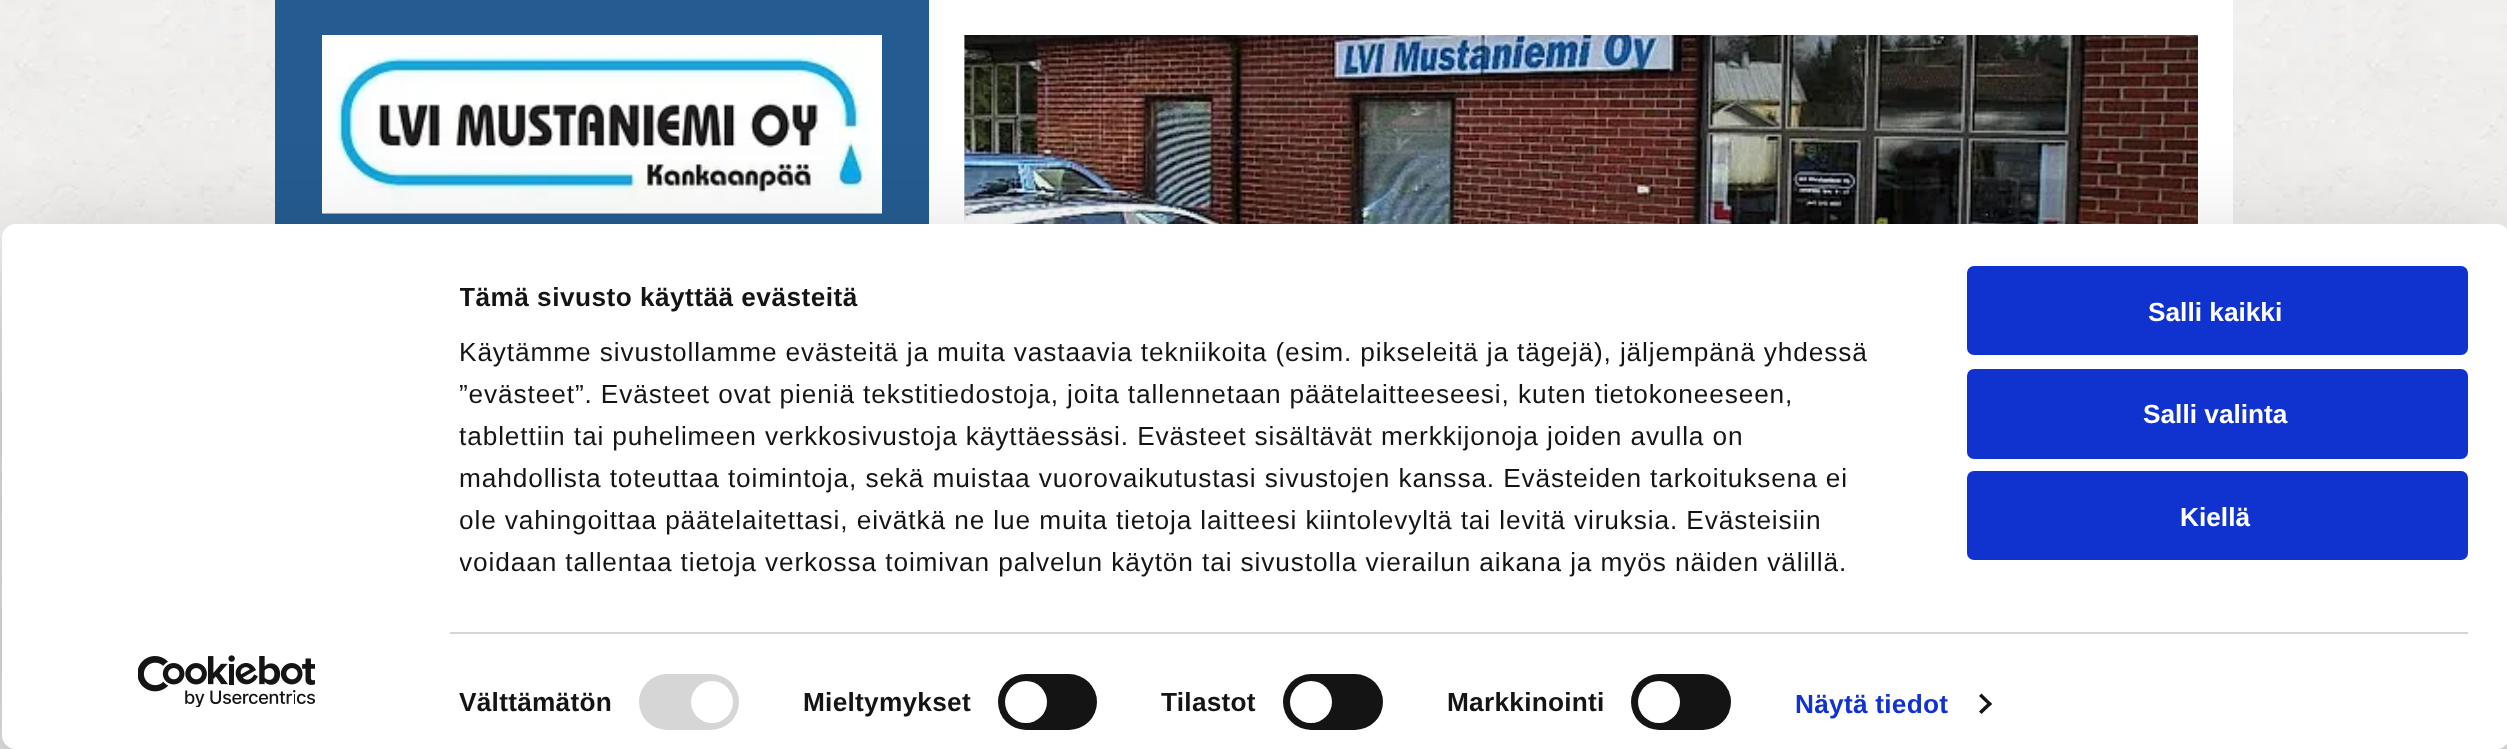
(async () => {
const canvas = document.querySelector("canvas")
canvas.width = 2507
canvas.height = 749
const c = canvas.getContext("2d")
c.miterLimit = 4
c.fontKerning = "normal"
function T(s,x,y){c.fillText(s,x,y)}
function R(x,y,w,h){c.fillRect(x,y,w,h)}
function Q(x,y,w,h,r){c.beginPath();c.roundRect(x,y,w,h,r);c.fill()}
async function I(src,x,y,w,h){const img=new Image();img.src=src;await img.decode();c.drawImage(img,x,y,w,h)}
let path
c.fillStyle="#fff"
R(0,0,2507,749)
await I("1.png",0,0,2507,749)
c.fillStyle="#245c91"
R(275,0,654,224)
await I("2.png",322,35,560,179)
c.fillStyle="#fff"
R(929,0,1304,224)
c.fillStyle="#eee"
R(964,35,1,189)
await I("3.png",964,35,1234,189)
c.save()
path = new Path2D("M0 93h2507v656h-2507zm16 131h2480c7.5 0 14 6.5 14 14v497c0 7.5-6.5 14-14 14h-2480c-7.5 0-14-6.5-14-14v-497c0-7.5 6.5-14 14-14z")
c.clip(path,"evenodd")
c.fillStyle="#0000004d"
c.filter="blur(61px)"
c.beginPath()
c.roundRect(2,277,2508,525,14)
c.fill()
c.filter="none"
c.restore()
c.fillStyle="#fff"
Q(2,224,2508,525,14)
c.save()
c.beginPath()
c.rect(460,277,1456,306)
c.clip()
c.letterSpacing="0.45px"
c.font="bold 26.25px Liberation Sans"
c.fillStyle="#141414"
T("Tämä sivusto käyttää evästeitä",459,306)
c.restore()
c.letterSpacing="0.88px"
c.font="26.25px Liberation Sans"
c.fillStyle="#141414"
T("Käytämme sivustollamme evästeitä ja muita vastaavia tekniikoita (esim. pikseleitä ja tägejä), jäljempänä yhdessä",459,361)
c.save()
c.beginPath()
c.rect(460,277,1456,306)
c.clip()
T("”evästeet”. Evästeet ovat pieniä tekstitiedostoja, joita tallennetaan päätelaitteeseesi, kuten tietokoneeseen,",459,403)
c.restore()
T("tablettiin tai puhelimeen verkkosivustoja käyttäessäsi. Evästeet sisältävät merkkijonoja joiden avulla on",459,445)
T("mahdollista toteuttaa toimintoja, sekä muistaa vuorovaikutustasi sivustojen kanssa. Evästeiden tarkoituksena ei",459,487)
c.save()
c.beginPath()
c.rect(460,277,1456,306)
c.clip()
T("ole vahingoittaa päätelaitettasi, eivätkä ne lue muita tietoja laitteesi kiintolevyltä tai levitä viruksia. Evästeisiin",459,529)
T("voidaan tallentaa tietoja verkossa toimivan palvelun käytön tai sivustolla vierailun aikana ja myös näiden välillä.",459,571)
c.restore()
c.fillStyle="#d6d6d6"
R(450,632,2018,2)
c.letterSpacing="0.25px"
c.font="bold 26.25px Liberation Sans"
c.fillStyle="#141414"
T("Välttämätön",459,711)
c.fillStyle="#d6d6d6"
Q(639,674,100,56,28)
c.fillStyle="#fff"
c.beginPath()
c.arc(712,702,21,0,7)
c.fill()
c.fillStyle="#141414"
T("Mieltymykset",803,711)
Q(998,674,99,56,28)
c.fillStyle="#fff"
c.beginPath()
c.arc(1026,702,21,0,7)
c.fill()
c.fillStyle="#141414"
T("Tilastot",1161,711)
Q(1283,674,100,56,28)
c.fillStyle="#fff"
c.beginPath()
c.arc(1311,702,21,0,7)
c.fill()
c.fillStyle="#141414"
T("Markkinointi",1447,711)
Q(1631,674,100,56,28)
c.fillStyle="#fff"
c.beginPath()
c.arc(1659,702,21,0,7)
c.fill()
c.fillStyle="#1032cf"
T("Näytä tiedot",1795,713)
c.fillStyle="#141414"
path = new Path2D("M1981.5 693.5l10.5 10.5l-2.5 2l-10.5-10z")
c.fill(path)
path = new Path2D("M1989.5 701.5l2.5 2.5l-10.5 10l-2.5-2.5z")
c.fill(path)
c.fillStyle="#1032cf"
c.beginPath()
c.roundRect(1969,268,497,85,5)
c.fill()
c.strokeStyle="#1032cf"
c.lineWidth=4
c.stroke()
c.letterSpacing="0px"
c.fillStyle="#fff"
T("Salli kaikki",2148,321)
c.fillStyle="#1032cf"
c.beginPath()
c.roundRect(1969,371,497,86,5)
c.fill()
c.stroke()
c.fillStyle="#fff"
T("Salli valinta",2143,423)
c.fillStyle="#1032cf"
c.beginPath()
c.roundRect(1969,473,497,85,5)
c.fill()
c.stroke()
c.fillStyle="#fff"
T("Kiellä",2180,526)
await I("4.png",138,655,177,52)
})()
